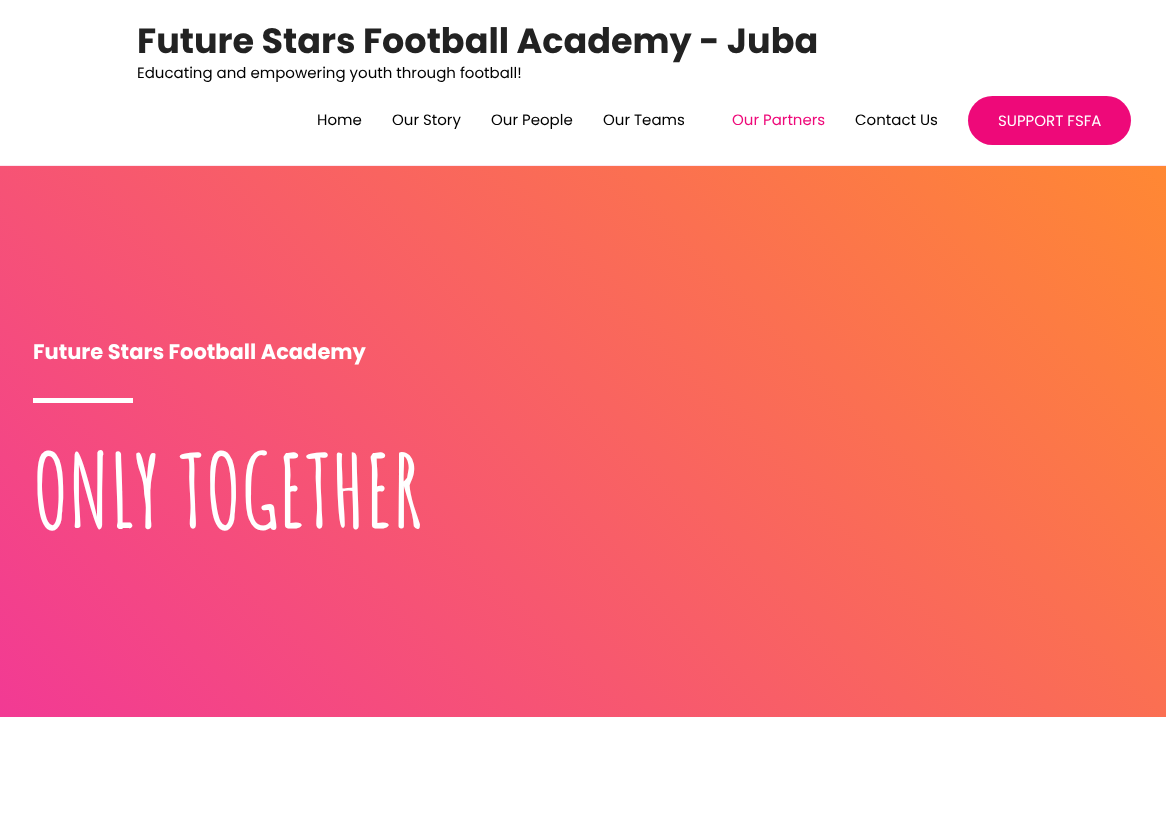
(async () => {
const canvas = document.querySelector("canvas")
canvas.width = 1166
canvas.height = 826
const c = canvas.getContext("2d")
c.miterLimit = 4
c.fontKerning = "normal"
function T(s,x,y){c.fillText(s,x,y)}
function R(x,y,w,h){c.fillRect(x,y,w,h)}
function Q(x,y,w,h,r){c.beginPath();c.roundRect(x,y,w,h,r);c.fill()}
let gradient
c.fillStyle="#fff"
R(0,0,1166,826)
c.fillStyle="#fde6f1"
R(0,165,1166,1)
c.font="bold 35px Poppins"
c.fillStyle="#222"
T("Future Stars Football Academy - Juba",137,53)
c.font="15px Poppins"
c.fillStyle="#000"
T("Educating and empowering youth through football!",137,78)
T("Home",317,125)
T("Our Story",392,125)
T("Our People",491,125)
T("Our Teams",603,125)
c.fillStyle="#ee0979"
T("Our Partners",732,125)
c.fillStyle="#000"
T("Contact Us",855,125)
c.fillStyle="#ee0979"
Q(968,96,163,49,24.5)
c.fillStyle="#fff"
T("SUPPORT FSFA",998,126)
gradient = c.createLinearGradient(154,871,1012,12)
gradient.addColorStop(0,"#f23a94")
gradient.addColorStop(1,"#f83")
c.fillStyle = gradient
R(0,166,1166,551)
c.font="bold 21px Poppins"
c.fillStyle="#fff"
T("Future Stars Football Academy",33,359)
R(33,398,100,5)
c.font="bold 100px Amatic SC"
T("ONLY TOGETHER",33,528)
})()
